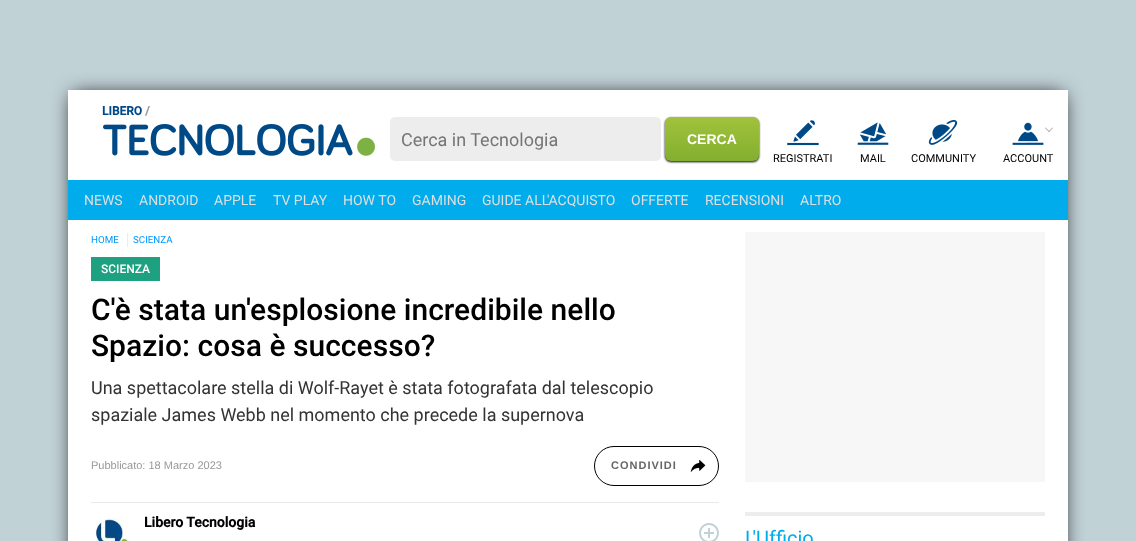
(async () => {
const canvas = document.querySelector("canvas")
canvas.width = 1136
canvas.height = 541
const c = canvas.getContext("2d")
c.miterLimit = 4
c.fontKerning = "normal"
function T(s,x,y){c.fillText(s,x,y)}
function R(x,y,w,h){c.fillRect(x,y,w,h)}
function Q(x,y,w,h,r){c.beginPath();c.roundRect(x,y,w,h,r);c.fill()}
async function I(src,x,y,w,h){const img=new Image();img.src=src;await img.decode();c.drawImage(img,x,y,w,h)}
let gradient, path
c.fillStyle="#c1d2d7"
R(0,0,1136,541)
c.fillStyle="#000"
c.filter="blur(10px)"
c.beginPath()
c.rect(73,95,990,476)
c.fill()
c.filter="none"
c.fillStyle="#fff"
R(68,90,1000,451)
c.font="bold 12px Roboto"
c.fillStyle="#004987"
T("LIBERO",102,115)
c.fillStyle="#999"
T("/",145,115)
await I("1.png",103,124,272,32)
c.fillStyle="#ededed"
Q(390,117,271,44,5)
c.font="18px Roboto"
c.fillStyle="#757575"
T("Cerca in Tecnologia",401,146)
c.fillStyle="#000"
c.filter="blur(1px)"
c.beginPath()
c.roundRect(665,118,94,44,6)
c.fill()
c.filter="none"
gradient = c.createLinearGradient(712,161,712,117)
gradient.addColorStop(0,"#83af30")
gradient.addColorStop(1,"#a1c23c")
c.fillStyle = gradient
Q(665,117,94,44,6)
c.font="bold 14px Liberation Sans"
c.fillStyle="#fff"
T("CERCA",687,144)
await I("2.png",787,120,32,26)
c.font="11px Roboto"
c.fillStyle="#000"
T("REGISTRATI",773,162)
await I("3.png",857,122,32,23)
T("MAIL",860,162)
await I("4.png",928,120,30,25)
T("COMMUNITY",911,162)
await I("5.png",1012,122,32,23)
c.fillStyle="#999"
path = new Path2D("M1052.5 127.5l.5 .5l-4 4l-.5-.5z")
c.fill(path)
path = new Path2D("M1045.5 127.5l4 4l-.5 .5l-4-4z")
c.fill(path)
c.fillStyle="#000"
T("ACCOUNT",1003,162)
c.fillStyle="#00acec"
R(68,180,1000,40)
c.font="14px Roboto"
c.fillStyle="#dedede"
T("NEWS",84,205)
T("ANDROID",139,205)
T("APPLE",214,205)
T("TV PLAY",273,205)
T("HOW TO",343,205)
T("GAMING",412,205)
T("GUIDE ALL'ACQUISTO",482,205)
T("OFFERTE",631,205)
T("RECENSIONI",705,205)
T("ALTRO",800,205)
c.font="9.75px Roboto"
c.fillStyle="#09f"
T("HOME",91,243)
c.fillStyle="#ededed"
R(127,233,1,14)
c.fillStyle="#09f"
T("SCIENZA",133,243)
c.fillStyle="#1da180"
R(91,257,69,24)
c.font="500 12px Roboto"
c.fillStyle="#fff"
T("SCIENZA",101,273)
c.font="500 30px Roboto"
c.fillStyle="#000"
T("C'è stata un'esplosione incredibile nello",91,320)
T("Spazio: cosa è successo?",91,356)
c.font="18px Roboto"
c.fillStyle="#333"
T("Una spettacolare stella di Wolf-Rayet è stata fotografata dal telescopio",91,394)
T("spaziale James Webb nel momento che precede la supernova",91,421)
c.font="11px Liberation Sans"
c.fillStyle="#999"
T("Pubblicato: 18 Marzo 2023",91,469)
c.beginPath()
c.roundRect(594.5,446.5,124,39,19.5)
c.strokeStyle="#000"
c.stroke()
c.letterSpacing="1px"
c.font="bold 11px Liberation Sans"
c.fillStyle="#666"
T("CONDIVIDI",611,469)
await I("6.png",690,460,16,12)
c.fillStyle="#e9e9e9"
R(91,502,628,1)
await I("7.png",95,518,35,23)
c.letterSpacing="0px"
c.font="bold 14px Roboto"
c.fillStyle="#000"
T("Libero Tecnologia",144,527)
await I("8.png",699,523,20,18)
c.fillStyle="#f7f7f7"
R(745,232,300,250)
c.fillStyle="#ededed"
R(745,512,300,4)
c.font="20px Roboto"
c.fillStyle="#00acec"
T("L'Ufficio",745,545)
})()
